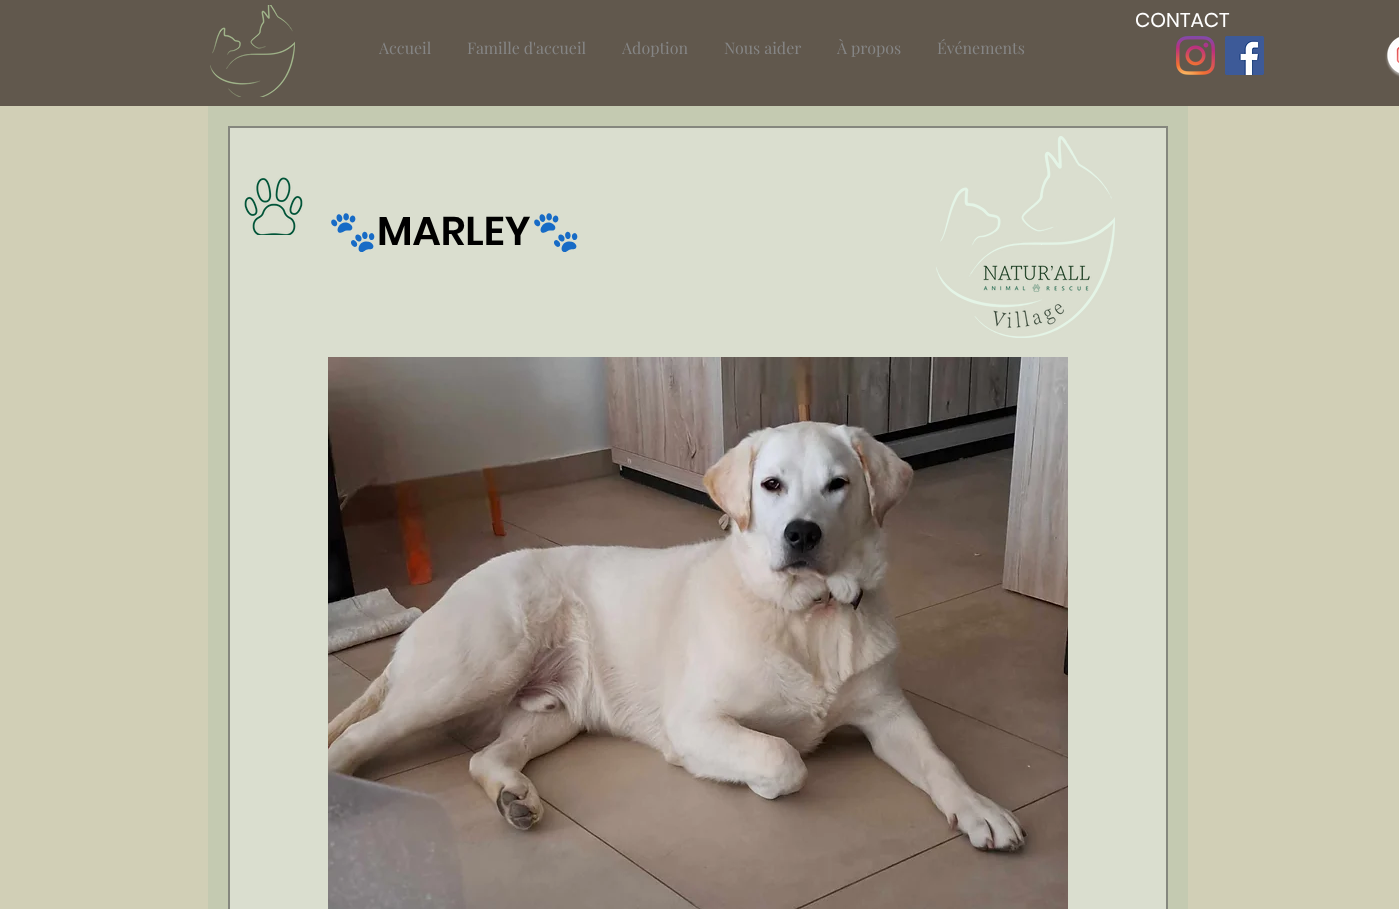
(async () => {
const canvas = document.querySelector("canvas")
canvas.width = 1399
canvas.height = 909
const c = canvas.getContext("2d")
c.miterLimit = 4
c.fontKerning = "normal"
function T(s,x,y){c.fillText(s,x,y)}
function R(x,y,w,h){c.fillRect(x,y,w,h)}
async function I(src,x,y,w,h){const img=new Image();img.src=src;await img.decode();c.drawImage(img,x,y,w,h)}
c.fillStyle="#d1cfb6"
R(0,0,1399,909)
c.fillStyle="#61584d"
R(0,0,1399,106)
await I("1.png",210,5,85,92)
c.font="20px Poppins"
c.fillStyle="#fff"
T("CONTACT",1135,27)
c.font="16px Playfair Display"
c.fillStyle="#858585"
T("Accueil",379,54)
T("Famille d'accueil",467,54)
T("Adoption",622,54)
T("Nous aider",724,54)
T("À propos",837,54)
T("Événements",937,54)
await I("2.png",1176,36,39,39)
await I("3.png",1225,36,39,39)
await I("4.png",1385,37,14,40)
c.fillStyle="#c4cab1"
R(208,106,980,803)
c.fillStyle="#dadecf"
c.beginPath()
c.rect(229,127,938,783)
c.fill()
c.strokeStyle="#85877e"
c.lineWidth=2
c.stroke()
await I("5.png",244,177,59,58)
c.font="40px Noto Color Emoji"
c.fillStyle="#000"
T("🐾",328,245)
c.font="600 40px Poppins"
T("MARLEY",377,245)
c.font="40px Noto Color Emoji"
T("🐾",531,245)
await I("6.png",328,357,740,552)
await I("7.png",936,136,179,202)
})()
